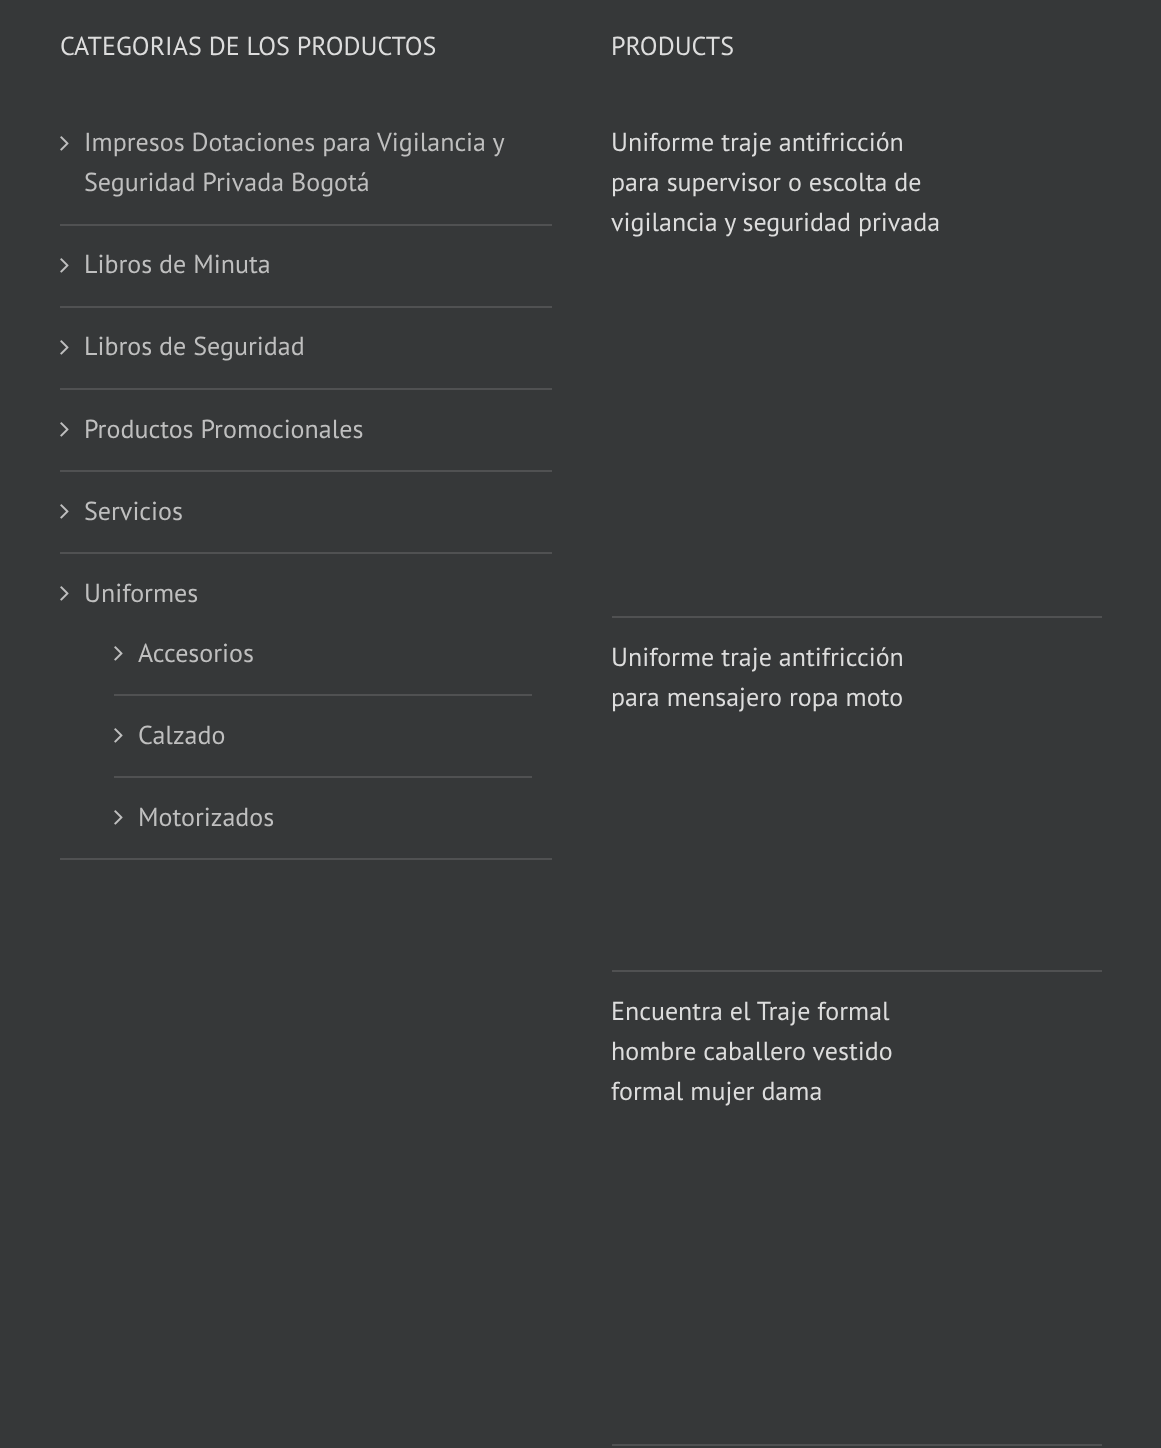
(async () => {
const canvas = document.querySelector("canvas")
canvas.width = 1161
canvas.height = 1448
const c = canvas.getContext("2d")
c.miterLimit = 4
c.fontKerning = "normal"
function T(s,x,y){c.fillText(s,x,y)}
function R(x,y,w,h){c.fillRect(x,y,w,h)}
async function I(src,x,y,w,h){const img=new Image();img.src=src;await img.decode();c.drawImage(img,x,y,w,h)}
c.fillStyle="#363839"
R(0,0,1161,1448)
c.font="26px PT Sans"
c.fillStyle="#ddd"
T("CATEGORIAS DE LOS PRODUCTOS",60,55)
c.fillStyle="#505152"
R(60,224,492,2)
await I("1.png",60,136,9,15)
c.fillStyle="#bfbfbf"
T("Impresos Dotaciones para Vigilancia y",84,151)
T("Seguridad Privada Bogotá",84,191)
c.fillStyle="#505152"
R(60,306,492,2)
await I("1.png",60,258,9,15)
c.fillStyle="#bfbfbf"
T("Libros de Minuta",84,273)
c.fillStyle="#505152"
R(60,388,492,2)
await I("1.png",60,340,9,15)
c.fillStyle="#bfbfbf"
T("Libros de Seguridad",84,355)
c.fillStyle="#505152"
R(60,470,492,2)
await I("1.png",60,422,9,15)
c.fillStyle="#bfbfbf"
T("Productos Promocionales",84,438)
c.fillStyle="#505152"
R(60,552,492,2)
await I("1.png",60,504,9,15)
c.fillStyle="#bfbfbf"
T("Servicios",84,520)
c.fillStyle="#505152"
R(60,858,492,2)
await I("1.png",60,586,9,15)
c.fillStyle="#bfbfbf"
T("Uniformes",84,602)
c.fillStyle="#505152"
R(114,694,418,2)
await I("1.png",114,646,9,15)
c.fillStyle="#bfbfbf"
T("Accesorios",138,662)
c.fillStyle="#505152"
R(114,776,418,2)
await I("1.png",114,728,9,15)
c.fillStyle="#bfbfbf"
T("Calzado",138,744)
await I("1.png",114,810,9,15)
T("Motorizados",138,826)
c.fillStyle="#ddd"
T("PRODUCTS",611,55)
c.fillStyle="#505152"
R(612,616,490,2)
c.fillStyle="#ddd"
T("Uniforme traje antifricción",611,151)
T("para supervisor o escolta de",611,191)
T("vigilancia y seguridad privada",611,231)
c.fillStyle="#505152"
R(612,970,490,2)
c.fillStyle="#ddd"
T("Uniforme traje antifricción",611,666)
T("para mensajero ropa moto",611,706)
c.fillStyle="#505152"
R(612,1444,490,2)
c.fillStyle="#ddd"
T("Encuentra el Traje formal",611,1020)
T("hombre caballero vestido",611,1060)
T("formal mujer dama",611,1100)
})()
